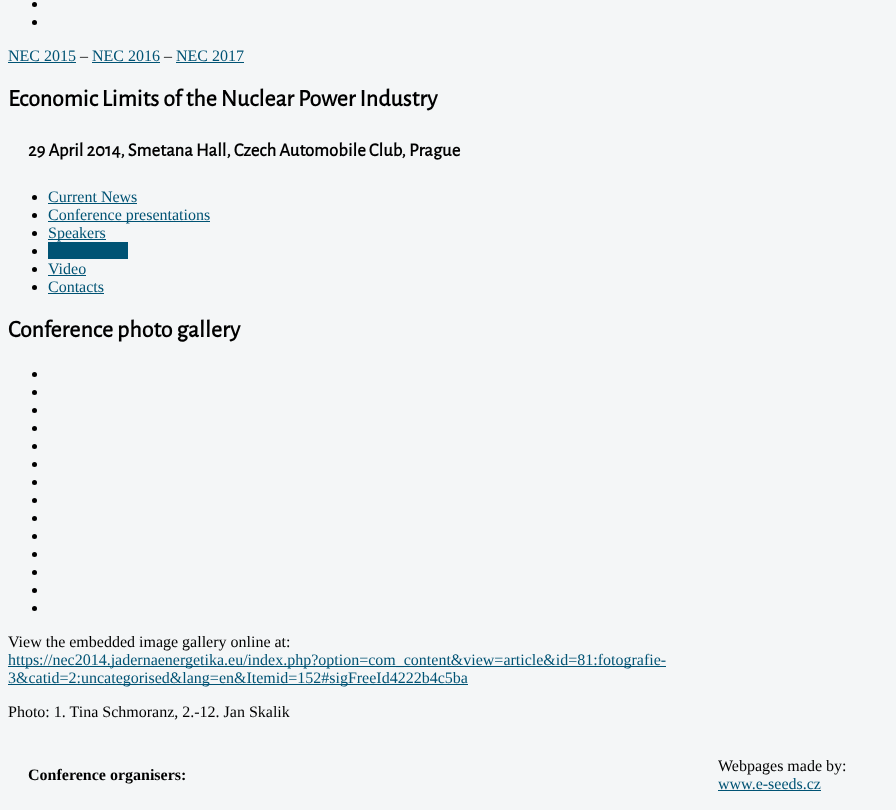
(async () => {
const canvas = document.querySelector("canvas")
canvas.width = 896
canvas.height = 810
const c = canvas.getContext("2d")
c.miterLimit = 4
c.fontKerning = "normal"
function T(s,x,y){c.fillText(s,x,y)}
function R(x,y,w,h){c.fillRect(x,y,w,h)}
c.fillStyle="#f4f6f7"
R(0,0,896,810)
c.fillStyle="#000"
c.beginPath()
c.arc(34.5,4.5,2.5,0,7)
c.fill()
c.beginPath()
c.arc(34.5,22.5,2.5,0,7)
c.fill()
c.font="16px Liberation Serif"
c.fillStyle="#005374"
T("NEC 2015",8,61)
R(8,62,68,1)
c.fillStyle="#000"
T("–",80,61)
c.fillStyle="#005374"
T("NEC 2016",92,61)
R(92,62,68,1)
c.fillStyle="#000"
T("–",164,61)
c.fillStyle="#005374"
T("NEC 2017",176,61)
R(176,62,68,1)
c.font="bold 24px Alegreya Sans"
c.fillStyle="#000"
T("Economic Limits of the Nuclear Power Industry",8,106)
c.font="bold 18.75px Alegreya Sans"
T("29 April 2014, Smetana Hall, Czech Automobile Club, Prague",28,156)
c.beginPath()
c.arc(34.5,197.5,2.5,0,7)
c.fill()
c.font="16px Liberation Serif"
c.fillStyle="#005374"
T("Current News",48,202)
R(48,203,89,1)
c.fillStyle="#000"
c.beginPath()
c.arc(34.5,215.5,2.5,0,7)
c.fill()
c.fillStyle="#005374"
R(48,221,162,1)
T("Conference presentations",48,220)
c.fillStyle="#000"
c.beginPath()
c.arc(34.5,233.5,2.5,0,7)
c.fill()
c.fillStyle="#005374"
R(48,239,58,1)
T("Speakers",48,238)
c.fillStyle="#000"
c.beginPath()
c.arc(34.5,251.5,2.5,0,7)
c.fill()
c.fillStyle="#005374"
R(48,242,80,17)
c.fillStyle="#000"
c.beginPath()
c.arc(34.5,269.5,2.5,0,7)
c.fill()
c.fillStyle="#005374"
T("Video",48,274)
R(48,275,38,1)
c.fillStyle="#000"
c.beginPath()
c.arc(34.5,287.5,2.5,0,7)
c.fill()
c.fillStyle="#005374"
T("Contacts",48,292)
R(48,293,56,1)
c.font="bold 24px Alegreya Sans"
c.fillStyle="#000"
T("Conference photo gallery",8,337)
c.beginPath()
c.arc(34.5,374.5,2.5,0,7)
c.fill()
c.beginPath()
c.arc(34.5,392.5,2.5,0,7)
c.fill()
c.beginPath()
c.arc(34.5,410.5,2.5,0,7)
c.fill()
c.beginPath()
c.arc(34.5,428.5,2.5,0,7)
c.fill()
c.beginPath()
c.arc(34.5,446.5,2.5,0,7)
c.fill()
c.beginPath()
c.arc(34.5,464.5,2.5,0,7)
c.fill()
c.beginPath()
c.arc(34.5,482.5,2.5,0,7)
c.fill()
c.beginPath()
c.arc(34.5,500.5,2.5,0,7)
c.fill()
c.beginPath()
c.arc(34.5,518.5,2.5,0,7)
c.fill()
c.beginPath()
c.arc(34.5,536.5,2.5,0,7)
c.fill()
c.beginPath()
c.arc(34.5,554.5,2.5,0,7)
c.fill()
c.beginPath()
c.arc(34.5,572.5,2.5,0,7)
c.fill()
c.beginPath()
c.arc(34.5,590.5,2.5,0,7)
c.fill()
c.beginPath()
c.arc(34.5,608.5,2.5,0,7)
c.fill()
c.font="16px Liberation Serif"
T("View the embedded image gallery online at:",8,647)
c.fillStyle="#005374"
R(8,666,658,1)
T("https://nec2014.jadernaenergetika.eu/index.php?option=com_content&view=article&id=81:fotografie-",8,665)
R(8,684,460,1)
T("3&catid=2:uncategorised&lang=en&Itemid=152#sigFreeId4222b4c5ba",8,683)
c.fillStyle="#000"
T("Photo: 1. Tina Schmoranz, 2.-12. Jan Skalik",8,717)
c.font="bold 16px Liberation Serif"
T("Conference organisers:",28,780)
c.font="16px Liberation Serif"
T("Webpages made by:",718,771)
c.fillStyle="#005374"
T("www.e-seeds.cz",718,789)
R(718,790,103,1)
})()
